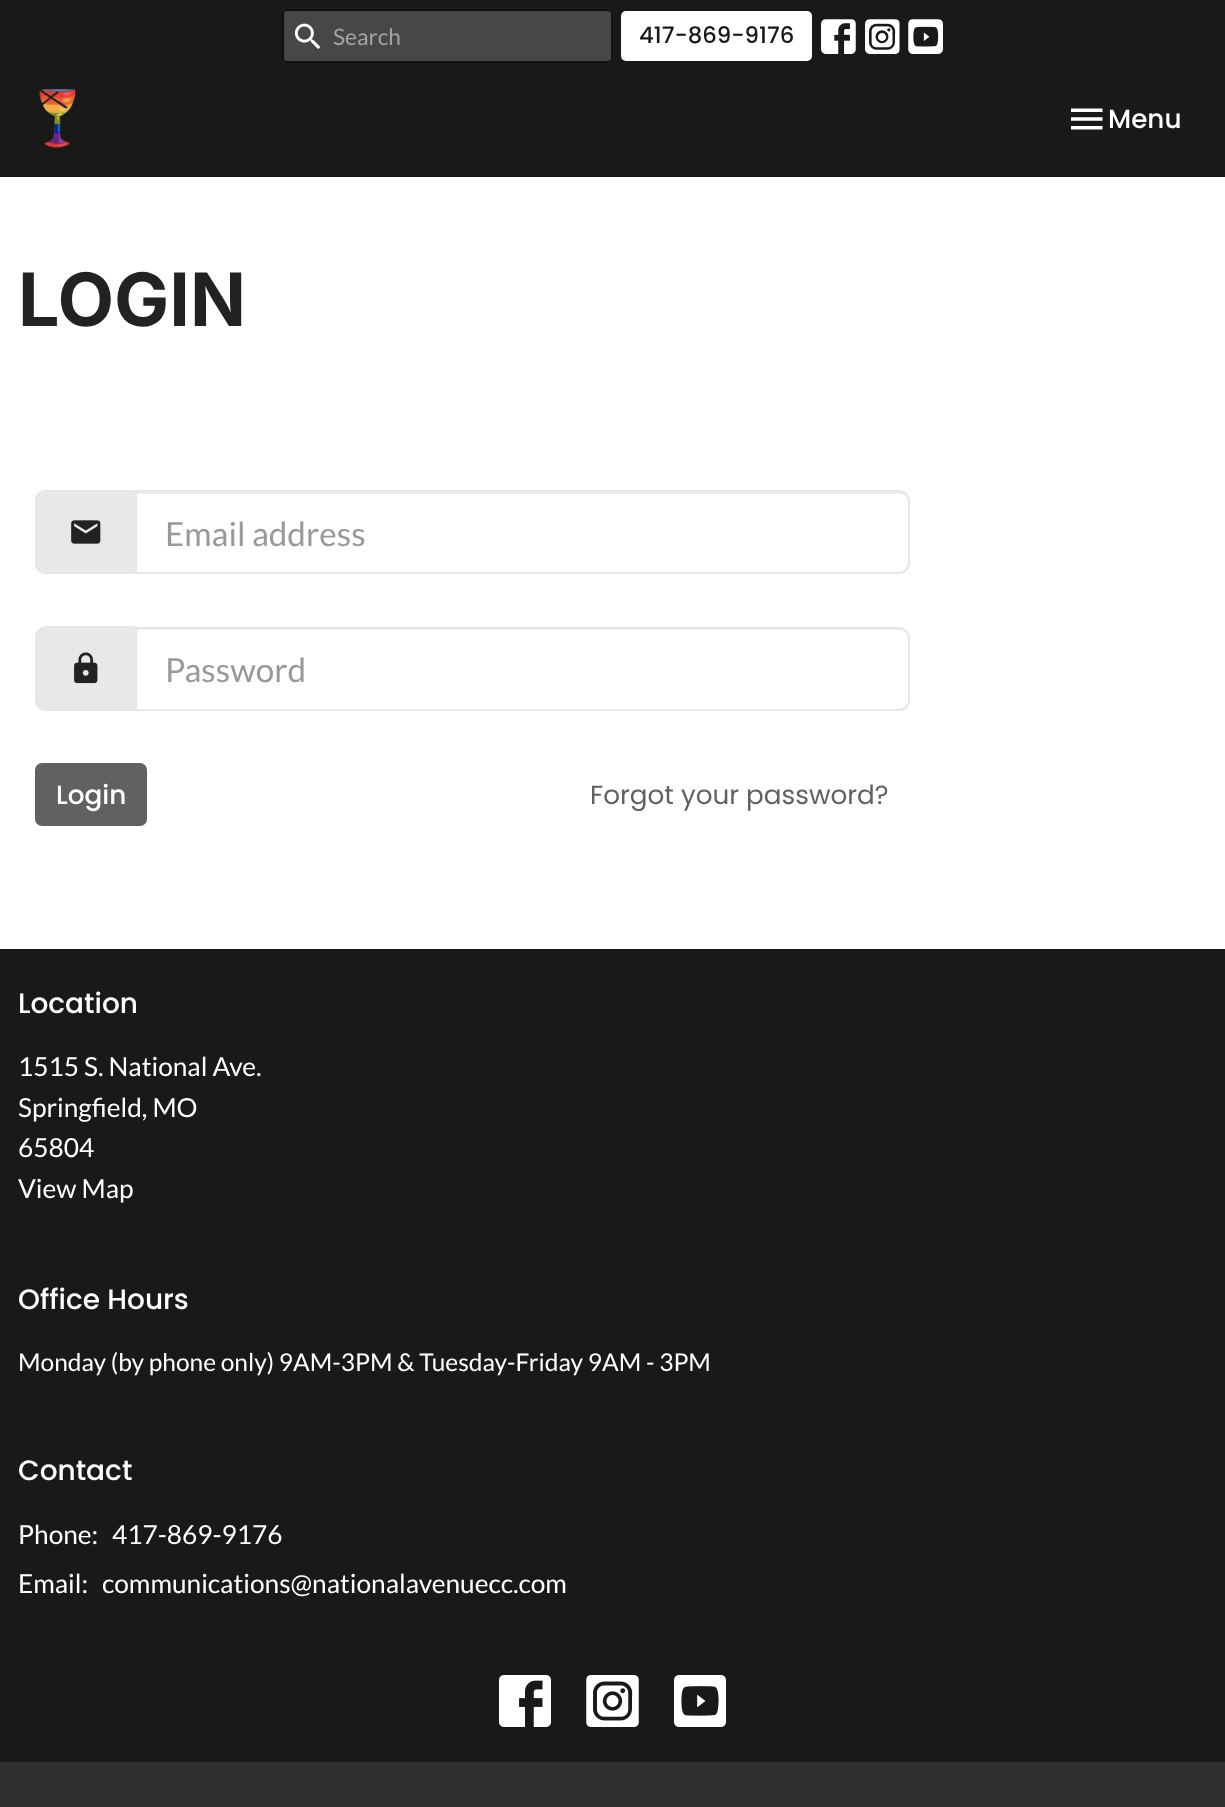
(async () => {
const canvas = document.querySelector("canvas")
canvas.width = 1225
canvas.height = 1807
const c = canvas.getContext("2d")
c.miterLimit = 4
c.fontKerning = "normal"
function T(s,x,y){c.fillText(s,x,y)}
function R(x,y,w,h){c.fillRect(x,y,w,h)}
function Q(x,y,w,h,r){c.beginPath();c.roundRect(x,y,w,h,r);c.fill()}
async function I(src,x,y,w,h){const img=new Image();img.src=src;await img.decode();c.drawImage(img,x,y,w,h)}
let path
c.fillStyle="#fff"
R(0,0,1225,1807)
c.fillStyle="#191919"
R(0,0,1225,177)
c.fillStyle="#474747"
Q(282,9,331,54,5)
c.fillStyle="#424242"
path = new Path2D("M287 12h320c2 0 4 2 4 4v-1c0-2-2-4-4-4h-319c-2 0-4 2-4 4v1c0-2 1-4 3-4z")
c.fill(path)
c.beginPath()
c.roundRect(283,10,329,52,4)
c.strokeStyle="#111"
c.lineWidth=2
c.stroke()
await I("1.png",294,23,27,26)
c.font="22.75px Lato"
c.fillStyle="#a3a3a3"
T("Search",333,45)
c.fillStyle="#fff"
Q(621,11,191,50,5)
c.font="500 22.75px Poppins"
c.fillStyle="#191919"
T("417-869-9176",639,43)
await I("2.png",821,19,35,35)
await I("3.png",865,19,35,35)
await I("4.png",908,19,35,35)
await I("5.png",35,89,41,62)
await I("6.png",1071,108,32,22)
c.font="500 26.25px Poppins"
c.fillStyle="#fff"
T("Menu",1108,128)
c.font="bold 73.5px Inter"
c.fillStyle="#222"
T("LOGIN",18,326)
c.fillStyle="#e8e8e8"
c.beginPath()
c.roundRect(35,490,100,84,[11,0,0,11])
c.fill()
c.fillStyle="#e6e6e6"
path = new Path2D("M46 490h89v84h-89c-6 0-11-5-11-10v-64c0-5 5-10 11-10zm0 2h89v80h-89c-5 0-9-4-9-8v-64c0-4 4-8 9-8z")
c.fill(path,"evenodd")
await I("7.png",71,520,30,24)
c.fillStyle="#ececec"
path = new Path2D("M137 492v2h763c4 0 8 3 8 8c0-5-3-10-9-10z")
c.fill(path)
c.beginPath()
c.roundRect(136,491,773,82,[0,10,10,0])
c.strokeStyle="#e6e6e6"
c.stroke()
c.font="33.25px Lato"
c.fillStyle="#999"
T("Email address",165,546)
c.fillStyle="#e8e8e8"
c.beginPath()
c.roundRect(35,627,100,84,[11,0,0,11])
c.fill()
c.fillStyle="#e6e6e6"
path = new Path2D("M46 626h89v84h-89c-6 0-11-4-11-10v-63c0-6 5-11 11-11zm0 2h89v81h-89c-5 0-9-4-9-9v-63c0-5 4-9 9-9z")
c.fill(path,"evenodd")
await I("8.png",74,652,24,32)
c.fillStyle="#ececec"
path = new Path2D("M137 628v2h763c4 0 8 4 8 9c0-6-3-11-9-11z")
c.fill(path)
c.beginPath()
c.roundRect(136,628,773,82,[0,10,10,0])
c.stroke()
c.fillStyle="#999"
T("Password",165,682)
c.fillStyle="#616161"
Q(35,763,112,63,7)
c.font="500 26.25px Poppins"
c.fillStyle="#fff"
T("Login",56,804)
c.font="26.25px Poppins"
c.fillStyle="#616161"
T("Forgot your password?",590,804)
c.fillStyle="#191919"
R(0,949,1225,813)
c.font="500 28px Poppins"
c.fillStyle="#fff"
T("Location",18,1013)
c.font="26.25px Lato"
T("1515 S. National Ave.",18,1076)
T("Springfield, MO",18,1117)
T("65804",18,1157)
T("View Map",18,1198)
c.font="500 28px Poppins"
T("Office Hours",18,1309)
c.font="24.5px Lato"
T("Monday (by phone only) 9AM-3PM & Tuesday-Friday 9AM - 3PM",18,1371)
c.font="500 28px Poppins"
T("Contact",18,1480)
c.font="26.25px Lato"
T("Phone:",18,1544)
T("417-869-9176",112,1544)
T("Email:",18,1593)
T("communications@nationalavenuecc.com",102,1593)
await I("9.png",499,1675,52,52)
await I("10.png",586,1675,53,52)
await I("11.png",674,1675,52,52)
c.fillStyle="#303030"
R(0,1762,1225,45)
})()
